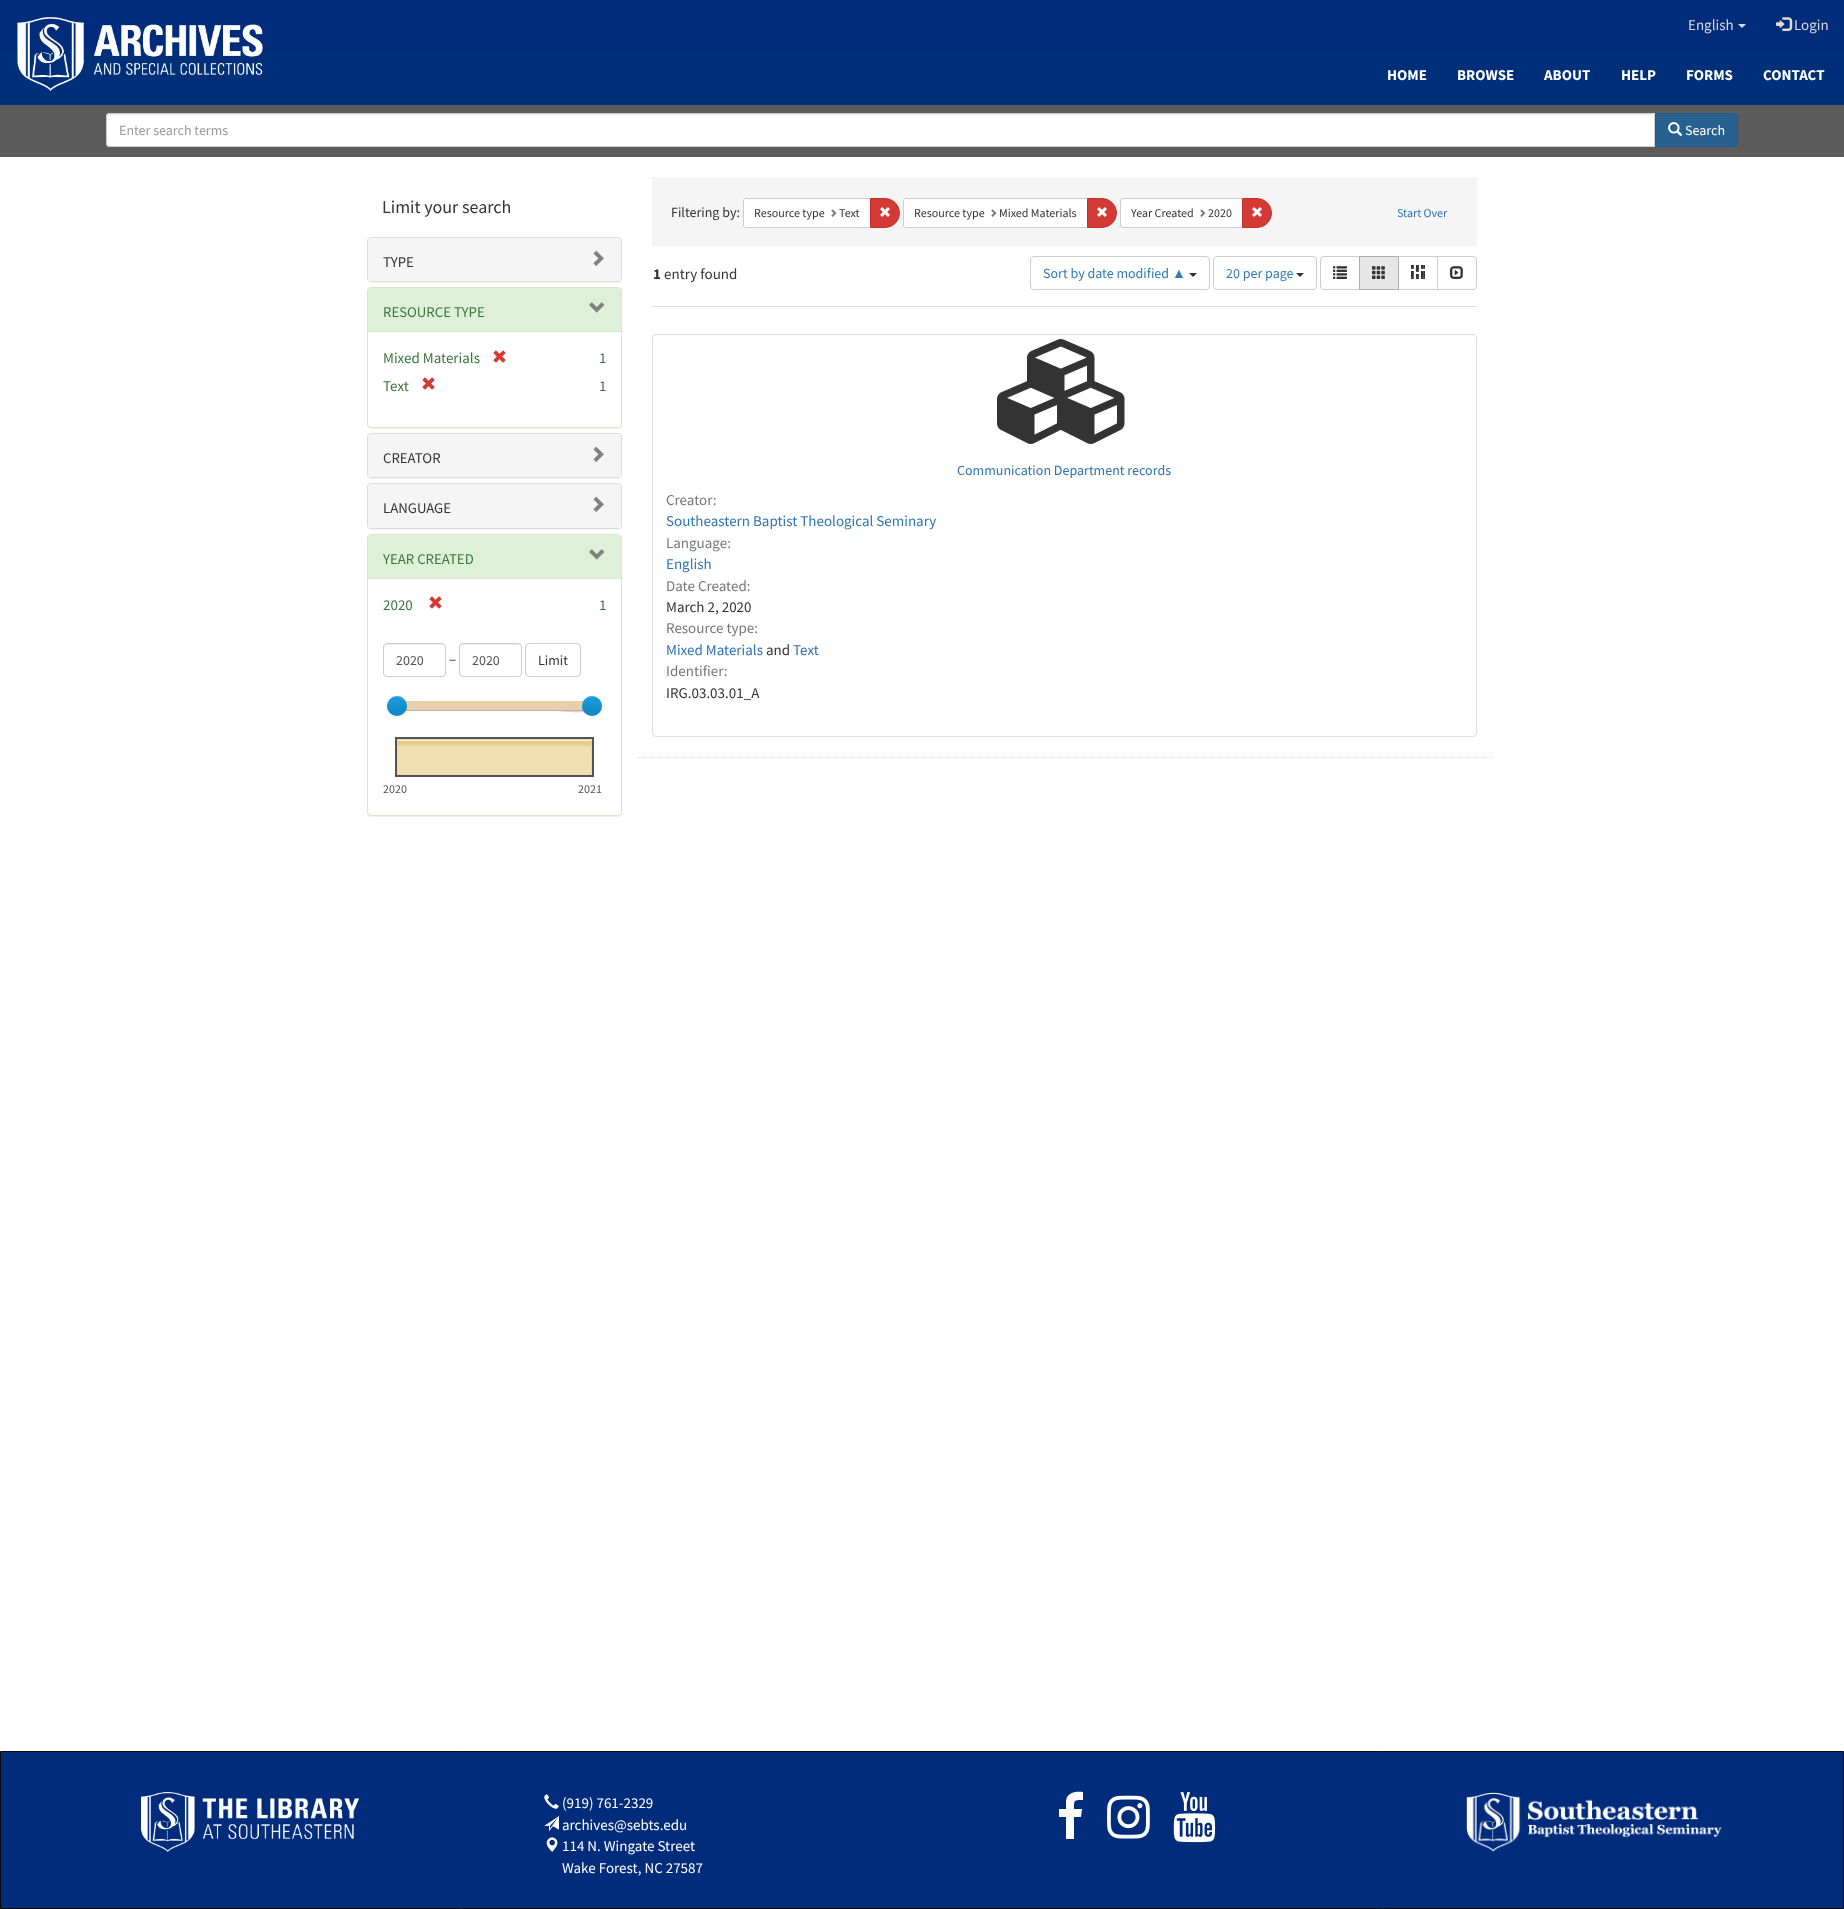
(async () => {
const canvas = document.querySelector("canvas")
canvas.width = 1844
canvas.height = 1909
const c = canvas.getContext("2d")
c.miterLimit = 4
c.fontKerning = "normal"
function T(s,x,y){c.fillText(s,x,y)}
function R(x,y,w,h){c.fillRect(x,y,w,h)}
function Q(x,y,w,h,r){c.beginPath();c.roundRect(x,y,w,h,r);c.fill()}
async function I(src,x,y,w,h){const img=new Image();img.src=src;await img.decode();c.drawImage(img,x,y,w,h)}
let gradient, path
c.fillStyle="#fff"
R(0,0,1844,1909)
c.fillStyle="#002f7a"
R(0,50,1844,55)
c.fillStyle="#002c7b"
R(0,0,1844,50)
await I("1.png",17,17,246,74)
c.font="15px Source Sans Pro"
c.fillStyle="#dcdcdc"
T("English",1688,30)
path = new Path2D("M1738 24h8l-4 4z")
c.fill(path)
await I("2.png",1776,17,17,14)
T("Login",1794,30)
c.font="bold 15px Source Sans Pro"
c.fillStyle="#fff"
T("HOME",1387,80)
T("BROWSE",1457,80)
T("ABOUT",1544,80)
T("HELP",1621,80)
T("FORMS",1686,80)
T("CONTACT",1763,80)
c.fillStyle="#5c5c5c"
R(0,105,1844,52)
c.fillStyle="#fff"
c.beginPath()
c.roundRect(106,113,1549,34,[4,0,0,4])
c.fill()
c.fillStyle="#ececec"
path = new Path2D("M110 115h1544v-1h-1544c-2 0-3 1-3 3v1c0-2 1-3 3-3z")
c.fill(path)
c.beginPath()
c.roundRect(106.5,113.5,1548,33,[3.5,0,0,3.5])
c.strokeStyle="#ccc"
c.stroke()
c.font="14px Source Sans Pro"
c.fillStyle="#999"
T("Enter search terms",119,135)
c.fillStyle="#286090"
c.beginPath()
c.roundRect(1655.5,113.5,82,33,[0,3.5,3.5,0])
c.fill()
c.strokeStyle="#265b89"
c.stroke()
await I("3.png",1668,122,15,14)
c.fillStyle="#fff"
T("Search",1685,135)
c.font="18px Source Sans Pro"
c.fillStyle="#333"
T("Limit your search",382,213)
c.fillStyle="#0000000d"
c.filter="blur(0.5px)"
c.beginPath()
c.roundRect(367,238,255,45,4)
c.fill()
c.filter="none"
c.beginPath()
c.roundRect(367.5,237.5,254,44,3.5)
c.strokeStyle="#ddd"
c.stroke()
c.fillStyle="#f5f5f5"
c.beginPath()
c.roundRect(368,238,253,43,[3,3,0,0])
c.fill()
c.font="14.75px Source Sans Pro"
c.fillStyle="#333"
T("TYPE",383,267)
await I("4.png",593,250,11,16)
c.fillStyle="#0000000d"
c.filter="blur(0.5px)"
c.beginPath()
c.roundRect(367,288,255,141,4)
c.fill()
c.filter="none"
c.fillStyle="#fff"
c.beginPath()
c.roundRect(367.5,287.5,254,140,3.5)
c.fill()
c.strokeStyle="#d6e9c6"
c.stroke()
c.fillStyle="#dff0d8"
c.beginPath()
c.roundRect(368,288,253,43,[3,3,0,0])
c.fill()
c.fillStyle="#3c763d"
T("RESOURCE TYPE",383,317)
await I("5.png",589,302,16,11)
c.fillStyle="#d6e9c6"
R(368,331,253,1)
c.font="15px Source Sans Pro"
c.fillStyle="#3c763d"
T("Mixed Materials",383,363)
await I("6.png",493,350,13,13)
T("1",599,363)
T("Text",383,391)
await I("6.png",422,377,13,13)
T("1",599,391)
c.fillStyle="#0000000d"
c.filter="blur(0.5px)"
c.beginPath()
c.roundRect(367,434,255,45,4)
c.fill()
c.filter="none"
c.beginPath()
c.roundRect(367.5,433.5,254,44,3.5)
c.strokeStyle="#ddd"
c.stroke()
c.fillStyle="#f5f5f5"
c.beginPath()
c.roundRect(368,434,253,43,[3,3,0,0])
c.fill()
c.font="14.75px Source Sans Pro"
c.fillStyle="#333"
T("CREATOR",383,463)
await I("4.png",593,446,11,16)
c.fillStyle="#0000000d"
c.filter="blur(0.5px)"
c.beginPath()
c.roundRect(367,484,255,46,4)
c.fill()
c.filter="none"
c.beginPath()
c.roundRect(367.5,483.5,254,45,3.5)
c.stroke()
c.fillStyle="#f5f5f5"
c.beginPath()
c.roundRect(368,484,253,44,[3,3,0,0])
c.fill()
c.fillStyle="#333"
T("LANGUAGE",383,513)
await I("4.png",593,496,11,16)
c.fillStyle="#0000000d"
c.filter="blur(0.5px)"
c.beginPath()
c.roundRect(367,535,255,282,4)
c.fill()
c.filter="none"
c.fillStyle="#fff"
c.beginPath()
c.roundRect(367.5,534.5,254,281,3.5)
c.fill()
c.strokeStyle="#d6e9c6"
c.stroke()
c.fillStyle="#dff0d8"
c.beginPath()
c.roundRect(368,535,253,43,[3,3,0,0])
c.fill()
c.fillStyle="#3c763d"
T("YEAR CREATED",383,564)
await I("5.png",589,549,16,11)
c.fillStyle="#d6e9c6"
R(368,578,253,1)
c.font="15px Source Sans Pro"
c.fillStyle="#3c763d"
T("2020",383,610)
await I("6.png",429,596,13,13)
T("1",599,610)
c.fillStyle="#ececec"
path = new Path2D("M387 645h55c2 0 3 1 3 3c0-6-8-4-12-4h-37c-4 0-12-2-12 4c0-2 1-3 3-3z")
c.fill(path)
c.beginPath()
c.roundRect(383.5,643.5,62,33,3.5)
c.strokeStyle="#ccc"
c.stroke()
c.font="14px Source Sans Pro"
c.fillStyle="#555"
T("2020",396,665)
c.font="15px Source Sans Pro"
c.fillStyle="#333"
T("–",449,664)
c.fillStyle="#ececec"
path = new Path2D("M463 645h55c2 0 3 1 3 3c0-6-8-4-12-4h-37c-4 0-12-2-12 4c0-2 1-3 3-3z")
c.fill(path)
c.beginPath()
c.roundRect(459.5,643.5,62,33,3.5)
c.stroke()
c.font="14px Source Sans Pro"
c.fillStyle="#555"
T("2020",472,665)
c.beginPath()
c.roundRect(525.5,643.5,55,33,3.5)
c.stroke()
c.fillStyle="#333"
T("Limit",538,665)
c.fillStyle="#e8cfac"
Q(397,701,195,10,4)
c.fillStyle="#00000026"
path = new Path2D("M397 705c0 3 0 6 4 6h156c2 0 35 5 35-4c-1 2-2 3-4 3h-188c-2-2-3-3-3-5z")
c.fill(path)
c.fillStyle="#0e90d2cc"
c.beginPath()
c.arc(397,706,10,0,7)
c.fill()
gradient = c.createLinearGradient(397,696,397,716)
gradient.addColorStop(0,"#149bdfcc")
gradient.addColorStop(1,"#0480becc")
c.fillStyle = gradient
c.beginPath()
c.arc(397,706,10,0,7)
c.fill()
c.fillStyle="#ffffff33"
path = new Path2D("M397 697c7.5 0 10.5 6 9.5 12c3.5-12-14-18.5-18.5-7c-1 2-1 4.5-.5 7c-1-6 2-12 9.5-12z")
c.fill(path)
c.fillStyle="#0e90d2cc"
c.beginPath()
c.arc(592,706,10,0,7)
c.fill()
gradient = c.createLinearGradient(592,696,592,716)
gradient.addColorStop(0,"#149bdfcc")
gradient.addColorStop(1,"#0480becc")
c.fillStyle = gradient
c.beginPath()
c.arc(592,706,10,0,7)
c.fill()
c.fillStyle="#ffffff33"
path = new Path2D("M592 697c7.5 0 10.5 6 9.5 12c.5-2.5 .5-5-.5-7c-4.5-11.5-22-5-18.5 7c-1-6 2-12 9.5-12z")
c.fill(path)
await I("7.png",395,737,199,40)
await I("8.png",397,739,195,36)
c.font="12px Source Sans Pro"
c.fillStyle="#555"
T("2020",383,793)
T("2021",578,793)
c.fillStyle="#f5f5f5"
R(652,177,825,69)
c.font="14px Source Sans Pro"
c.fillStyle="#333"
T("Filtering by:",671,217)
c.fillStyle="#fff"
c.beginPath()
c.roundRect(743.5,198.5,127,29,[2.5,0,0,2.5])
c.fill()
c.stroke()
c.font="12px Source Sans Pro"
c.fillStyle="#333"
T("Resource type",754,217)
await I("9.png",831,209,6,8)
T("Text",839,217)
c.fillStyle="#d33a35"
c.beginPath()
c.roundRect(870.5,198.5,29,29,[0,14.5,14.5,0])
c.fill()
c.strokeStyle="#c4302b"
c.stroke()
await I("10.png",880,207,10,10)
c.fillStyle="#fff"
c.beginPath()
c.roundRect(903.5,198.5,184,29,[2.5,0,0,2.5])
c.fill()
c.strokeStyle="#ccc"
c.stroke()
c.fillStyle="#333"
T("Resource type",914,217)
await I("9.png",991,209,6,8)
T("Mixed Materials",999,217)
c.fillStyle="#d33a35"
c.beginPath()
c.roundRect(1087.5,198.5,29,29,[0,14.5,14.5,0])
c.fill()
c.strokeStyle="#c4302b"
c.stroke()
await I("10.png",1097,207,10,10)
c.fillStyle="#fff"
c.beginPath()
c.roundRect(1120.5,198.5,122,29,[2.5,0,0,2.5])
c.fill()
c.strokeStyle="#ccc"
c.stroke()
c.fillStyle="#333"
T("Year Created",1131,217)
await I("9.png",1200,209,6,8)
T("2020",1208,217)
c.fillStyle="#d33a35"
c.beginPath()
c.roundRect(1242.5,198.5,29,29,[0,14.5,14.5,0])
c.fill()
c.strokeStyle="#c4302b"
c.stroke()
await I("10.png",1252,207,10,10)
c.fillStyle="#2e74b2"
T("Start Over",1397,217)
c.fillStyle="#ddd"
R(652,306,825,1)
c.font="bold 15px Source Sans Pro"
c.fillStyle="#333"
T("1",653,279)
c.font="15px Source Sans Pro"
T("entry found",664,279)
c.beginPath()
c.roundRect(1030.5,256.5,179,33,3.5)
c.strokeStyle="#ccc"
c.stroke()
c.font="14px Source Sans Pro"
c.fillStyle="#337ab7"
T("Sort by date modified",1043,278)
c.font="14px Liberation Sans"
T("▲",1172,278)
c.fillStyle="#333"
path = new Path2D("M1189 273h8l-4 4z")
c.fill(path)
c.beginPath()
c.roundRect(1213.5,256.5,103,33,3.5)
c.stroke()
c.font="14px Source Sans Pro"
c.fillStyle="#337ab7"
T("20 per page",1226,278)
c.fillStyle="#333"
path = new Path2D("M1296 273h8l-4 4z")
c.fill(path)
c.beginPath()
c.roundRect(1320.5,256.5,39,33,[3.5,0,0,3.5])
c.stroke()
await I("11.png",1333,266,14,13)
c.strokeRect(1398.5,256.5,39,33)
c.fillStyle="#e6e6e6"
c.beginPath()
c.rect(1359.5,256.5,39,33)
c.fill()
c.strokeStyle="#adadad"
c.stroke()
await I("12.png",1372,266,13,13)
await I("13.png",1411,265,14,14)
c.fillStyle="#fff"
c.beginPath()
c.roundRect(1437.5,256.5,39,33,[0,3.5,3.5,0])
c.fill()
c.strokeStyle="#ccc"
c.stroke()
await I("14.png",1450,266,13,13)
path = new Path2D("M637 757.5h855")
c.strokeStyle="#ddd"
c.setLineDash([1,1])
c.stroke(path)
c.beginPath()
c.roundRect(652.5,334.5,824,402,3.5)
c.setLineDash([])
c.stroke()
await I("15.png",997,339,128,105)
c.fillStyle="#2e74b2"
T("Communication Department records",957,475)
c.font="15px Source Sans Pro"
c.fillStyle="#777"
T("Creator:",666,505)
c.fillStyle="#2e74b2"
T("Southeastern Baptist Theological Seminary",666,526)
c.fillStyle="#777"
T("Language:",666,548)
c.fillStyle="#2e74b2"
T("English",666,569)
c.fillStyle="#777"
T("Date Created:",666,591)
c.fillStyle="#333"
T("March 2, 2020",666,612)
c.fillStyle="#777"
T("Resource type:",666,633)
c.fillStyle="#2e74b2"
T("Mixed Materials",666,655)
c.fillStyle="#333"
T("and",766,655)
c.fillStyle="#2e74b2"
T("Text",793,655)
c.fillStyle="#777"
T("Identifier:",666,676)
c.fillStyle="#333"
T("IRG.03.03.01_A",666,698)
c.fillStyle="#002c7b"
c.beginPath()
c.rect(.5,1751.5,1843,157)
c.fill()
c.strokeStyle="#090909"
c.stroke()
await I("16.png",141,1792,218,60)
await I("17.png",544,1794,15,15)
c.fillStyle="#fff"
T("(919) 761-2329",562,1808)
await I("18.png",544,1816,15,16)
T("archives@sebts.edu",562,1830)
await I("19.png",546,1837,12,15)
T("114 N. Wingate Street",562,1851)
T("Wake Forest, NC 27587",562,1873)
path = new Path2D("M1083 1792v8c-9 0-9 0-9 9h8l-1 8h-7v22h-8v-22h-7v-8h7v-8c1-9 10-10 17-9z")
c.fill(path)
await I("20.png",1107,1795,43,44)
await I("21.png",1173,1792,43,51)
await I("22.png",1466,1792,256,60)
})()
